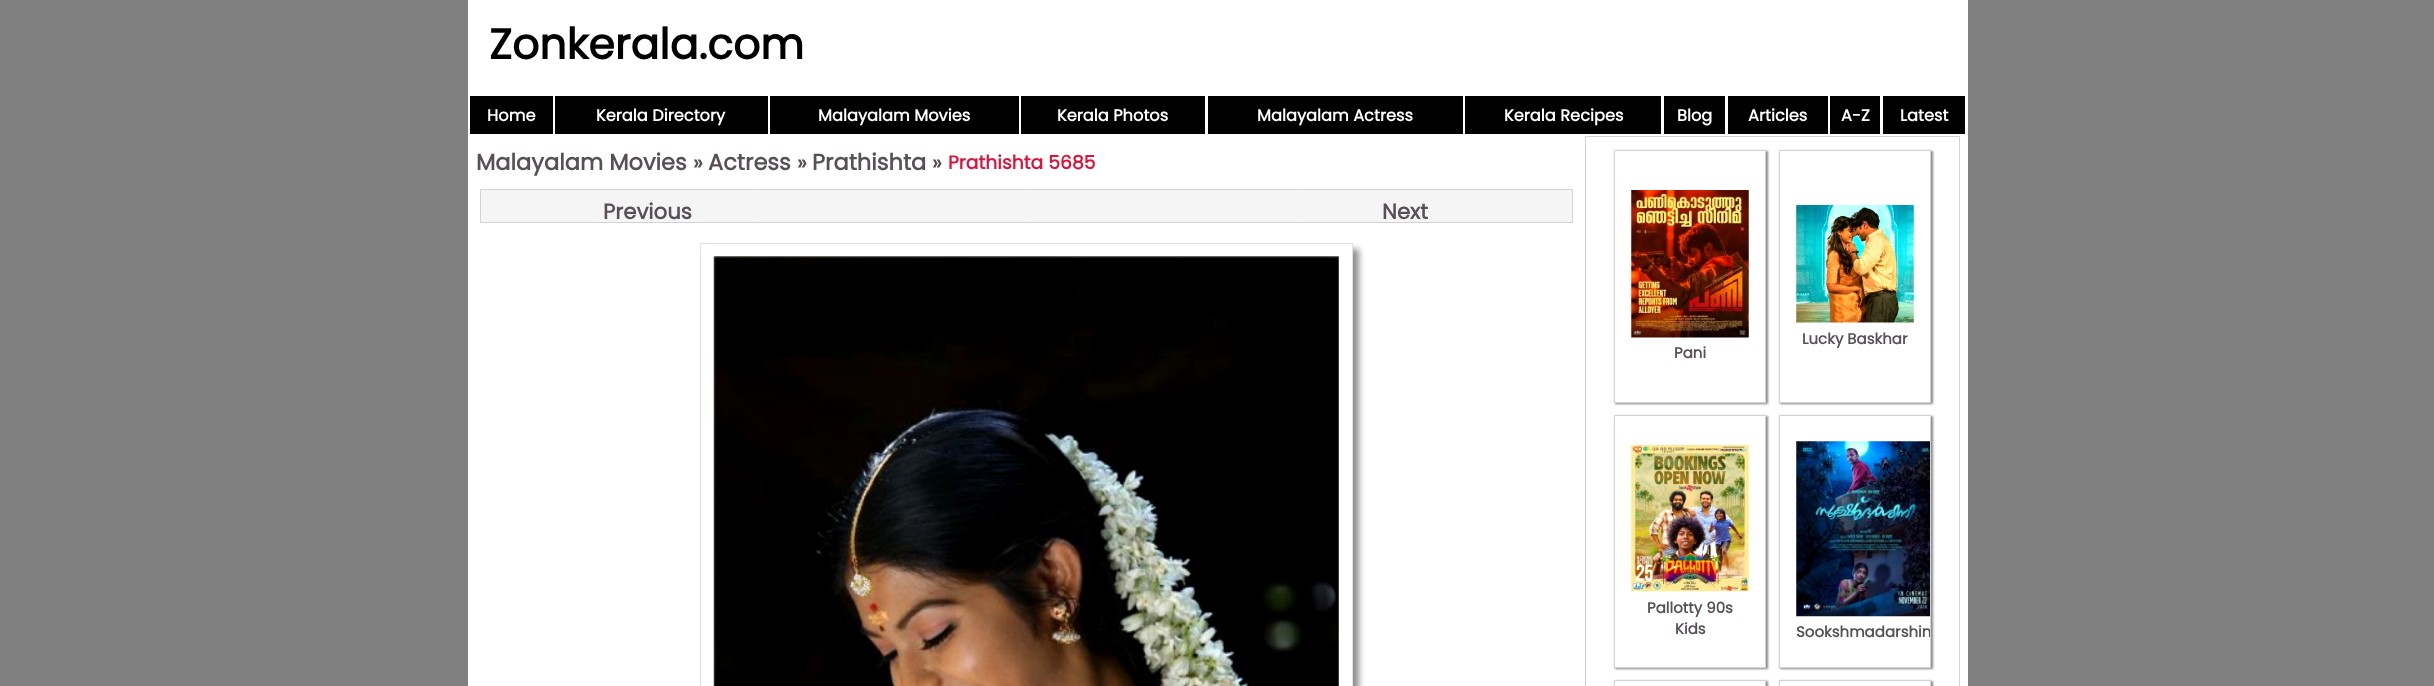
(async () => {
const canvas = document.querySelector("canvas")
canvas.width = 2434
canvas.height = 686
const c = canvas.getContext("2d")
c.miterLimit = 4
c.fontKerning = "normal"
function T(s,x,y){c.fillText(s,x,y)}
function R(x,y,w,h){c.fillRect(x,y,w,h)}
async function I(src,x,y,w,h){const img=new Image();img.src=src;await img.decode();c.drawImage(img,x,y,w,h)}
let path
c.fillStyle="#808080"
R(0,0,2434,686)
c.fillStyle="#fff"
R(468,0,1500,686)
c.font="bold 42.5px Poppins"
c.fillStyle="#000"
T("Zonkerala.com",489,59)
R(470,96,83,38)
c.font="bold 16.25px Poppins"
c.fillStyle="#fff"
T("Home",487,121)
c.fillStyle="#000"
R(555,96,213,38)
c.fillStyle="#fff"
T("Kerala Directory",596,121)
c.fillStyle="#000"
R(770,96,249,38)
c.fillStyle="#fff"
T("Malayalam Movies",818,121)
c.fillStyle="#000"
R(1021,96,184,38)
c.fillStyle="#fff"
T("Kerala Photos",1057,121)
c.fillStyle="#000"
R(1208,96,255,38)
c.fillStyle="#fff"
T("Malayalam Actress",1257,121)
c.fillStyle="#000"
R(1465,96,196,38)
c.fillStyle="#fff"
T("Kerala Recipes",1504,121)
c.fillStyle="#000"
R(1664,96,61,38)
c.fillStyle="#fff"
T("Blog",1677,121)
c.fillStyle="#000"
R(1728,96,100,38)
c.fillStyle="#fff"
T("Articles",1748,121)
c.fillStyle="#000"
R(1830,96,50,38)
c.fillStyle="#fff"
T("A-Z",1841,121)
c.fillStyle="#000"
R(1883,96,82,38)
c.fillStyle="#fff"
T("Latest",1900,121)
c.font="bold 22.5px Poppins"
c.fillStyle="#575057"
T("Malayalam Movies",476,170)
c.font="bold 21.25px Poppins"
T("»",693,170)
c.font="bold 22.5px Poppins"
T("Actress",708,170)
c.font="bold 21.25px Poppins"
T("»",797,170)
c.font="bold 22.5px Poppins"
T("Prathishta",812,170)
c.font="bold 21.25px Poppins"
T("»",932,170)
c.font="bold 18.75px Poppins"
c.fillStyle="#dc143c"
T("Prathishta 5685",948,169)
c.fillStyle="#f5f5f5"
c.beginPath()
c.rect(480.5,189.5,1092,33)
c.fill()
c.strokeStyle="#d3d3d3"
c.stroke()
c.font="bold 21.25px Poppins"
c.fillStyle="#575057"
T("Previous",603,219)
T("Next",1382,219)
c.fillStyle="#909090"
c.filter="blur(3px)"
c.beginPath()
c.rect(706,249,653,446)
c.fill()
c.filter="none"
c.fillStyle="#fff"
c.beginPath()
c.rect(700.5,243.5,652,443)
c.fill()
c.strokeStyle="#e2e2e2"
c.stroke()
await I("1.png",713,256,626,430)
c.strokeStyle="#d3d3d3"
c.strokeRect(1585.5,136.5,374,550)
c.fillStyle="#888"
c.filter="blur(1px)"
c.beginPath()
c.rect(1780,151,153,253)
c.fill()
c.filter="none"
c.fillStyle="#fff"
c.beginPath()
c.rect(1779.5,150.5,151,252)
c.fill()
c.stroke()
await I("2.png",1796,205,118,118)
c.font="bold 15px Poppins"
c.fillStyle="#575057"
T("Lucky Baskhar",1802,344)
c.fillStyle="#888"
c.filter="blur(1px)"
c.beginPath()
c.rect(1615,151,153,253)
c.fill()
c.filter="none"
c.fillStyle="#fff"
c.beginPath()
c.rect(1614.5,150.5,151,252)
c.fill()
c.stroke()
await I("3.png",1631,190,118,148)
c.fillStyle="#575057"
T("Pani",1674,358)
c.fillStyle="#888"
c.filter="blur(1px)"
c.beginPath()
c.rect(1615,416,153,253)
c.fill()
c.filter="none"
c.fillStyle="#fff"
c.beginPath()
c.rect(1614.5,415.5,151,252)
c.fill()
c.stroke()
await I("4.png",1631,445,118,147)
c.fillStyle="#575057"
T("Pallotty 90s",1647,613)
T("Kids",1675,634)
c.fillStyle="#888"
c.filter="blur(1px)"
c.beginPath()
c.rect(1780,416,153,253)
c.fill()
c.filter="none"
c.fillStyle="#fff"
c.beginPath()
c.rect(1779.5,415.5,151,252)
c.fill()
c.stroke()
await I("5.png",1796,441,134,176)
c.save()
c.beginPath()
c.rect(1795,431,135,220)
c.clip()
c.fillStyle="#575057"
T("Sookshmadarshin",1796,637)
c.restore()
c.save()
path = new Path2D("M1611 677h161v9h-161zm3 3h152v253h-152z")
c.clip(path,"evenodd")
c.fillStyle="#888"
c.filter="blur(1px)"
c.beginPath()
c.rect(1615,681,153,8)
c.fill()
c.filter="none"
c.restore()
c.strokeRect(1614.5,680.5,151,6)
c.save()
path = new Path2D("M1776 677h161v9h-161zm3 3h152v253h-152z")
c.clip(path,"evenodd")
c.fillStyle="#888"
c.filter="blur(1px)"
c.beginPath()
c.rect(1780,681,153,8)
c.fill()
c.filter="none"
c.restore()
c.strokeRect(1779.5,680.5,151,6)
})()
